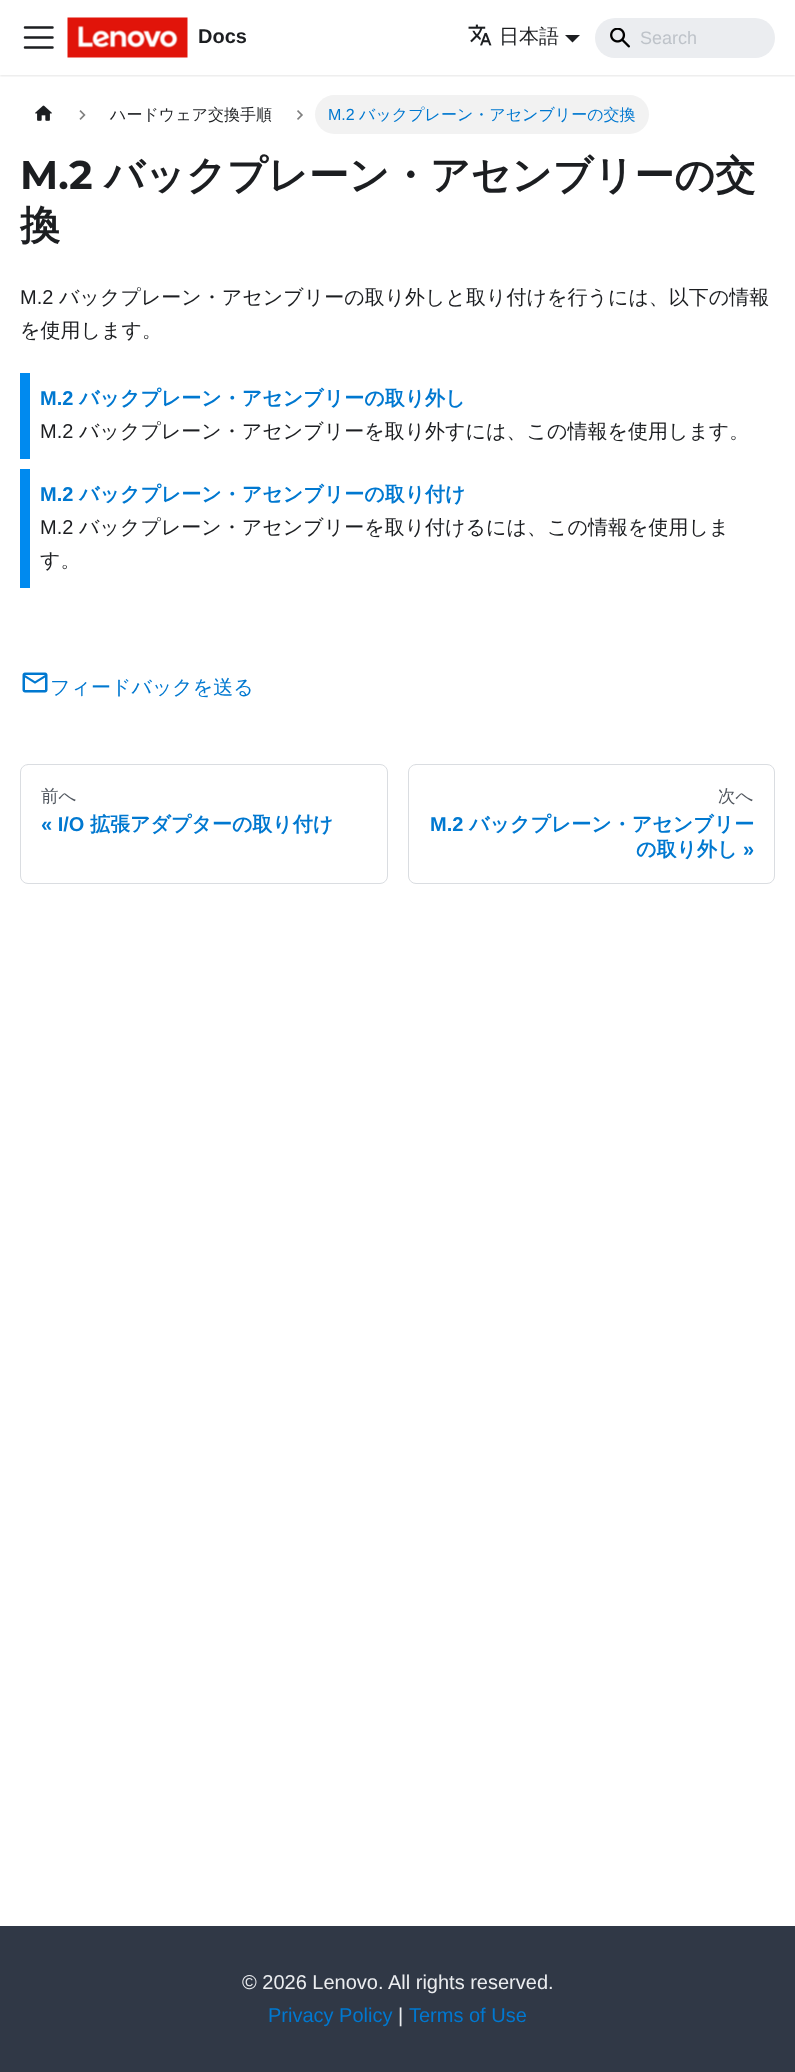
(async () => {
const canvas = document.querySelector("canvas")
canvas.width = 795
canvas.height = 2072
const c = canvas.getContext("2d")
c.miterLimit = 4
c.fontKerning = "normal"
function T(s,x,y){c.fillText(s,x,y)}
function R(x,y,w,h){c.fillRect(x,y,w,h)}
function Q(x,y,w,h,r){c.beginPath();c.roundRect(x,y,w,h,r);c.fill()}
async function I(src,x,y,w,h){const img=new Image();img.src=src;await img.decode();c.drawImage(img,x,y,w,h)}
let path
c.fillStyle="#fff"
R(0,0,795,2072)
c.save()
c.beginPath()
c.rect(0,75,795,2)
c.clip()
c.fillStyle="#0000001a"
c.filter="blur(1px)"
c.beginPath()
c.rect(0,1,795,75)
c.fill()
c.filter="none"
c.restore()
path = new Path2D("M25 27.5h27.5m-27.5 10h27.5m-27.5 10h27.5")
c.strokeStyle="#1c1e21"
c.lineWidth=2.5
c.lineCap="round"
c.stroke(path)
await I("1.png",67,17,121,41)
c.font="bold 20px Liberation Sans"
c.fillStyle="#1c1e21"
T("Docs",198,43)
await I("2.png",468,24,24,22)
c.font="500 20px WenQuanYi Zen Hei"
T("日本語",499,43)
path = new Path2D("M565 35h15l-7.5 7.5z")
c.fill(path)
c.fillStyle="#ebedf0"
Q(595,18,180,40,20)
await I("3.png",610,28,20,20)
c.font="18px Liberation Sans"
c.fillStyle="#bec3c9"
T("Search",640,44)
await I("4.png",35,105,17,16)
await I("5.png",79,110,7,10)
c.font="500 16px WenQuanYi Zen Hei"
c.fillStyle="#1c1e21"
T("ハードウェア交換手順",110,120)
await I("6.png",297,110,6,10)
c.fillStyle="#f2f2f2"
Q(315,95,334,39,19.5)
c.font="16px Liberation Sans"
c.fillStyle="#0078d0"
T("M.2",328,120)
c.font="500 16px WenQuanYi Zen Hei"
T("バックプレーン・アセンブリーの交換",359,120)
c.font="bold 40px Montserrat"
c.fillStyle="#1c1e21"
T("M.2",20,189)
c.font="bold 40px WenQuanYi Zen Hei"
T("バックプレーン・アセンブリーの交",104,189)
T("換",20,239)
c.font="20px Liberation Sans"
T("M.2",20,304)
c.font="500 20px WenQuanYi Zen Hei"
T("バックプレーン・アセンブリーの取り外しと取り付けを行うには、以下の情報",59,304)
T("を使用します。",20,337)
c.fillStyle="#008aef"
R(20,373,10,86)
c.font="bold 20px Liberation Sans"
c.fillStyle="#0078d0"
T("M.2",40,405)
c.font="bold 20px WenQuanYi Zen Hei"
T("バックプレーン・アセンブリーの取り外し",79,405)
c.font="20px Liberation Sans"
c.fillStyle="#1c1e21"
T("M.2",40,438)
c.font="500 20px WenQuanYi Zen Hei"
T("バックプレーン・アセンブリーを取り外すには、この情報を使用します。",79,438)
c.fillStyle="#008aef"
R(20,469,10,119)
c.font="bold 20px Liberation Sans"
c.fillStyle="#0078d0"
T("M.2",40,501)
c.font="bold 20px WenQuanYi Zen Hei"
T("バックプレーン・アセンブリーの取り付け",79,501)
c.font="20px Liberation Sans"
c.fillStyle="#1c1e21"
T("M.2",40,534)
c.font="500 20px WenQuanYi Zen Hei"
T("バックプレーン・アセンブリーを取り付けるには、この情報を使用しま",79,534)
T("す。",40,567)
await I("7.png",22,672,26,21)
c.fillStyle="#0078d0"
T("フィードバックを送る",50,694)
c.beginPath()
c.roundRect(20.5,764.5,367,119,7.5)
c.strokeStyle="#dadde1"
c.lineWidth=1
c.stroke()
c.font="500 17.5px WenQuanYi Zen Hei"
c.fillStyle="#525860"
T("前へ",41,802)
c.font="bold 20px Liberation Sans"
c.fillStyle="#0078d0"
T("« I/O",41,831)
c.font="bold 20px WenQuanYi Zen Hei"
T("拡張アダプターの取り付け",90,831)
c.beginPath()
c.roundRect(408.5,764.5,366,119,7.5)
c.stroke()
c.font="500 17.5px WenQuanYi Zen Hei"
c.fillStyle="#525860"
T("次へ",718,802)
c.font="bold 20px Liberation Sans"
c.fillStyle="#0078d0"
T("M.2",430,831)
c.font="bold 20px WenQuanYi Zen Hei"
T("バックプレーン・アセンブリー",469,831)
T("の取り外し",636,856)
c.font="bold 20px Liberation Sans"
T("»",743,856)
c.fillStyle="#303846"
R(0,1926,795,146)
c.font="20px Liberation Sans"
c.fillStyle="#ebedf0"
T("© 2026 Lenovo. All rights reserved.",242,1989)
c.fillStyle="#0078d0"
T("Privacy Policy",268,2022)
c.fillStyle="#ebedf0"
T("|",398,2022)
c.fillStyle="#0078d0"
T("Terms of Use",409,2022)
})()
